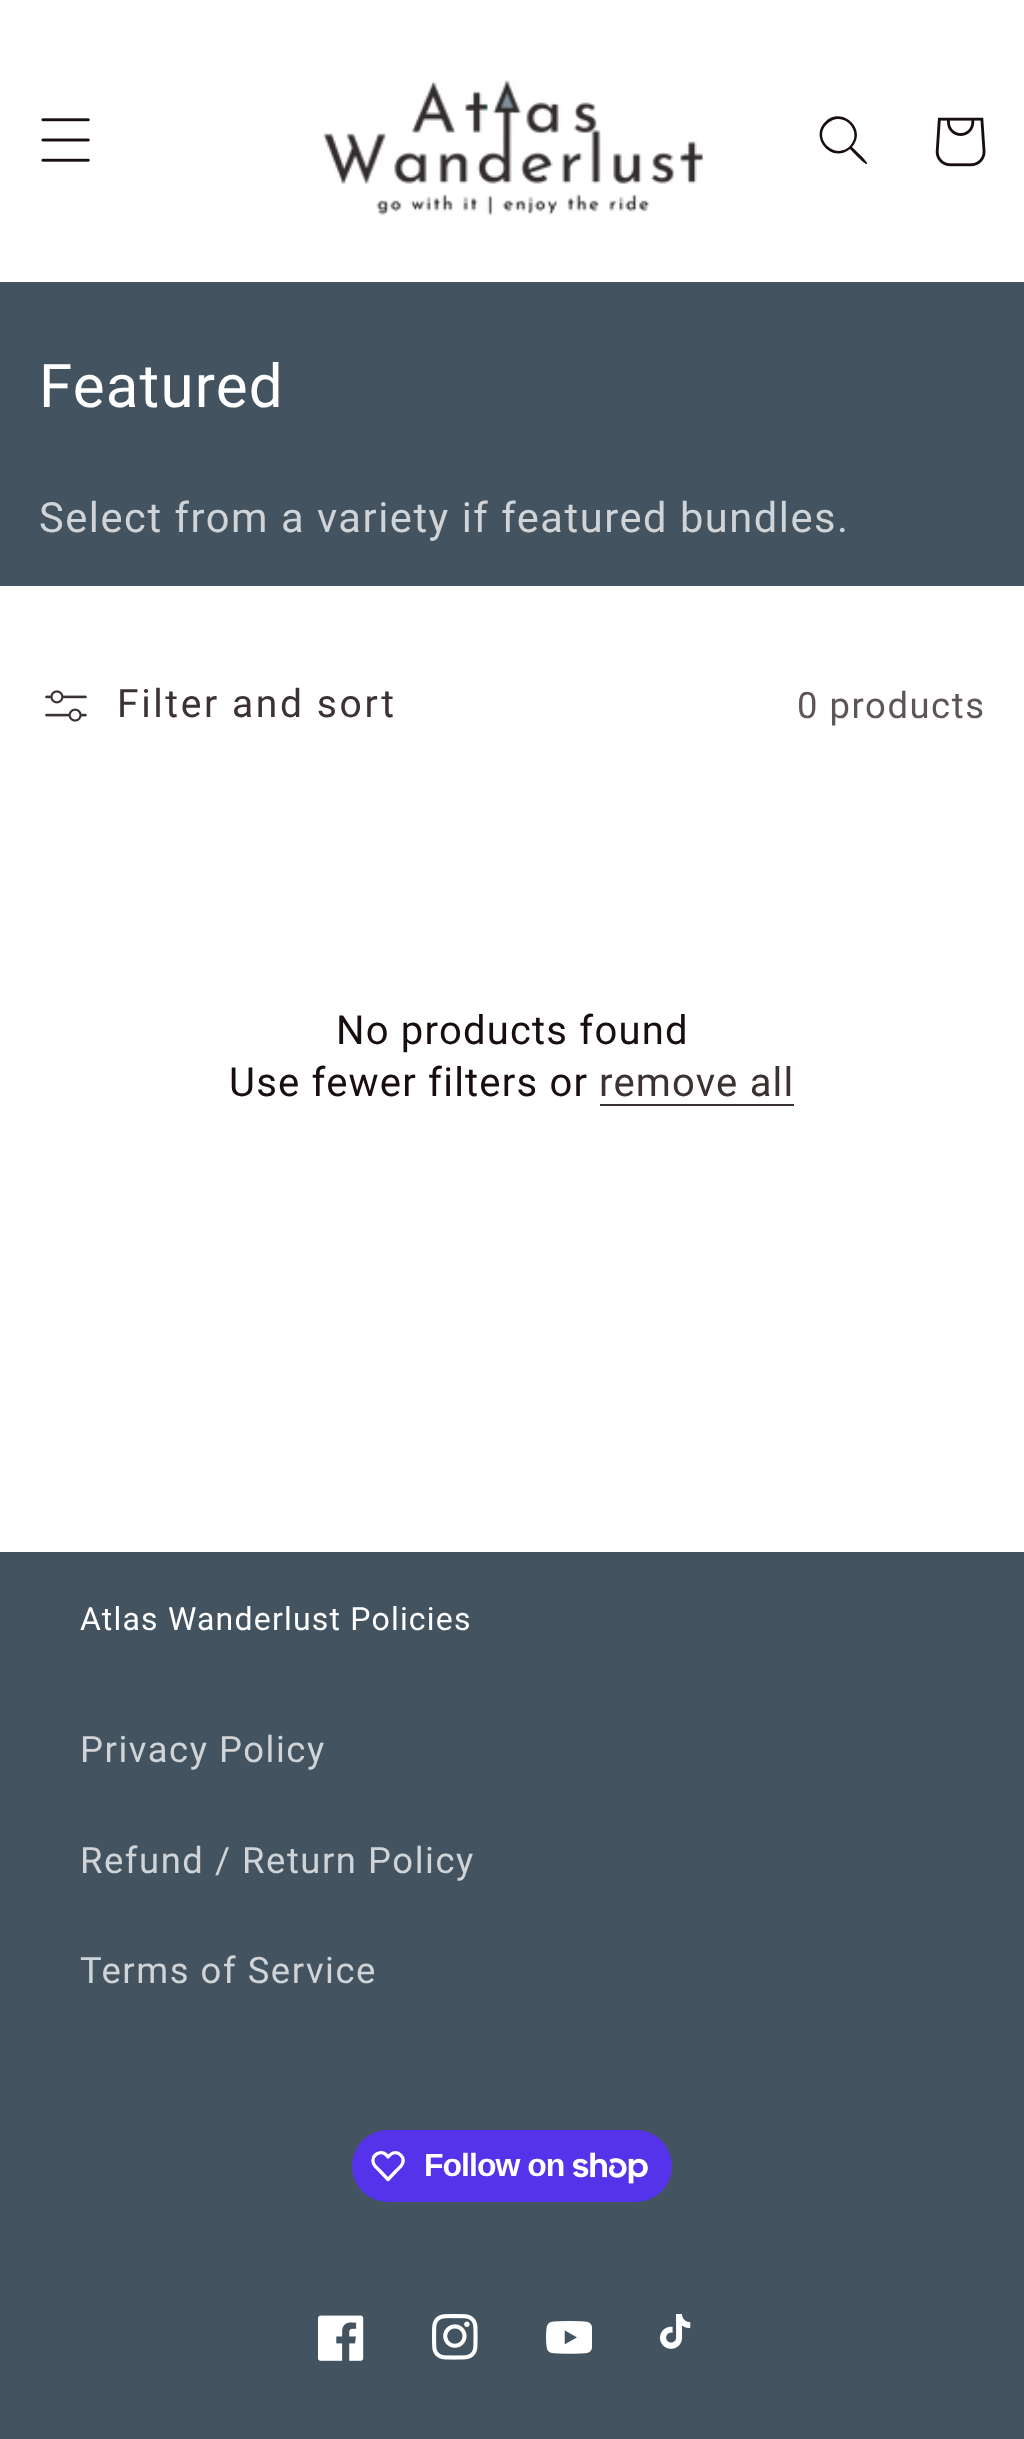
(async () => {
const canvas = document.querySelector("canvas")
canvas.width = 1024
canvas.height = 2439
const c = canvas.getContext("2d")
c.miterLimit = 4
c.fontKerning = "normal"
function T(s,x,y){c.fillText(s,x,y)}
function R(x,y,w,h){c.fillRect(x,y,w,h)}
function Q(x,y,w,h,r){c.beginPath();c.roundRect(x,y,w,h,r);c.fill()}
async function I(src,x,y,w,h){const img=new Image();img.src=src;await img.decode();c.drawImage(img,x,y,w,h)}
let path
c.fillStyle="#fff"
R(0,0,1024,2439)
await I("1.png",41,118,49,44)
await I("2.png",323,80,381,136)
c.fillStyle="#190e0e"
path = new Path2D("M850 146c-15 15-38-8-23-22c15-15 37 7 23 22zm0 3c-18 15-41-11-25-27c17-17 43 8 27 25c2 2 15 14 15 16v1c-2 1-15-13-17-15z")
c.fill(path,"evenodd")
await I("3.png",935,117,51,50)
c.fillStyle="#435460"
R(0,282,1024,304)
c.letterSpacing="1.2px"
c.font="60px Roboto"
c.fillStyle="#fff"
T("Featured",39,407)
c.letterSpacing="1.55px"
c.font="41.6px Roboto"
c.fillStyle="#d0d4d7"
T("Select from a variety if featured bundles.",39,532)
await I("4.png",45,690,42,32)
c.letterSpacing="2.6px"
c.font="39px Roboto"
c.fillStyle="#3c3232"
T("Filter and sort",117,717)
c.letterSpacing="1.55px"
c.font="36.4px Roboto"
c.fillStyle="#5e5656"
T("0 products",797,718)
c.letterSpacing="1.2px"
c.font="40px Roboto"
c.fillStyle="#190e0e"
T("No products found",336,1044)
T("Use fewer filters or",229,1096)
c.fillStyle="#3c3232"
T("remove all",599,1096)
R(600,1104,194,2)
c.fillStyle="#435460"
R(0,1552,1024,887)
c.font="32px Roboto"
c.fillStyle="#fff"
T("Atlas Wanderlust Policies",80,1630)
c.letterSpacing="1.55px"
c.font="36.4px Roboto"
c.fillStyle="#d0d4d7"
T("Privacy Policy",80,1762)
T("Refund / Return Policy",80,1873)
T("Terms of Service",80,1983)
c.fillStyle="#5433eb"
Q(352,2130,320,72,36)
path = new Path2D("M386.5 2155l1.5 2c1.5-1.5 3-3.5 5-4c6-2 12 4.5 9.5 10.5c-1 3-4 5-6 7l-8.5 9l-8.5-9c-2-2-5-4-6-7c-3-8 7-14.5 13-8.5z")
c.strokeStyle="#fff"
c.lineWidth=3.3
c.lineJoin="round"
c.stroke(path)
c.letterSpacing="-1px"
c.font="bold 32px Liberation Sans"
c.fillStyle="#fff"
T("Follow on",424,2176)
await I("5.png",573,2152,75,32)
await I("6.png",318,2315,46,46)
await I("7.png",432,2314,46,46)
await I("8.png",546,2321,46,33)
await I("9.png",660,2314,31,35)
})()
